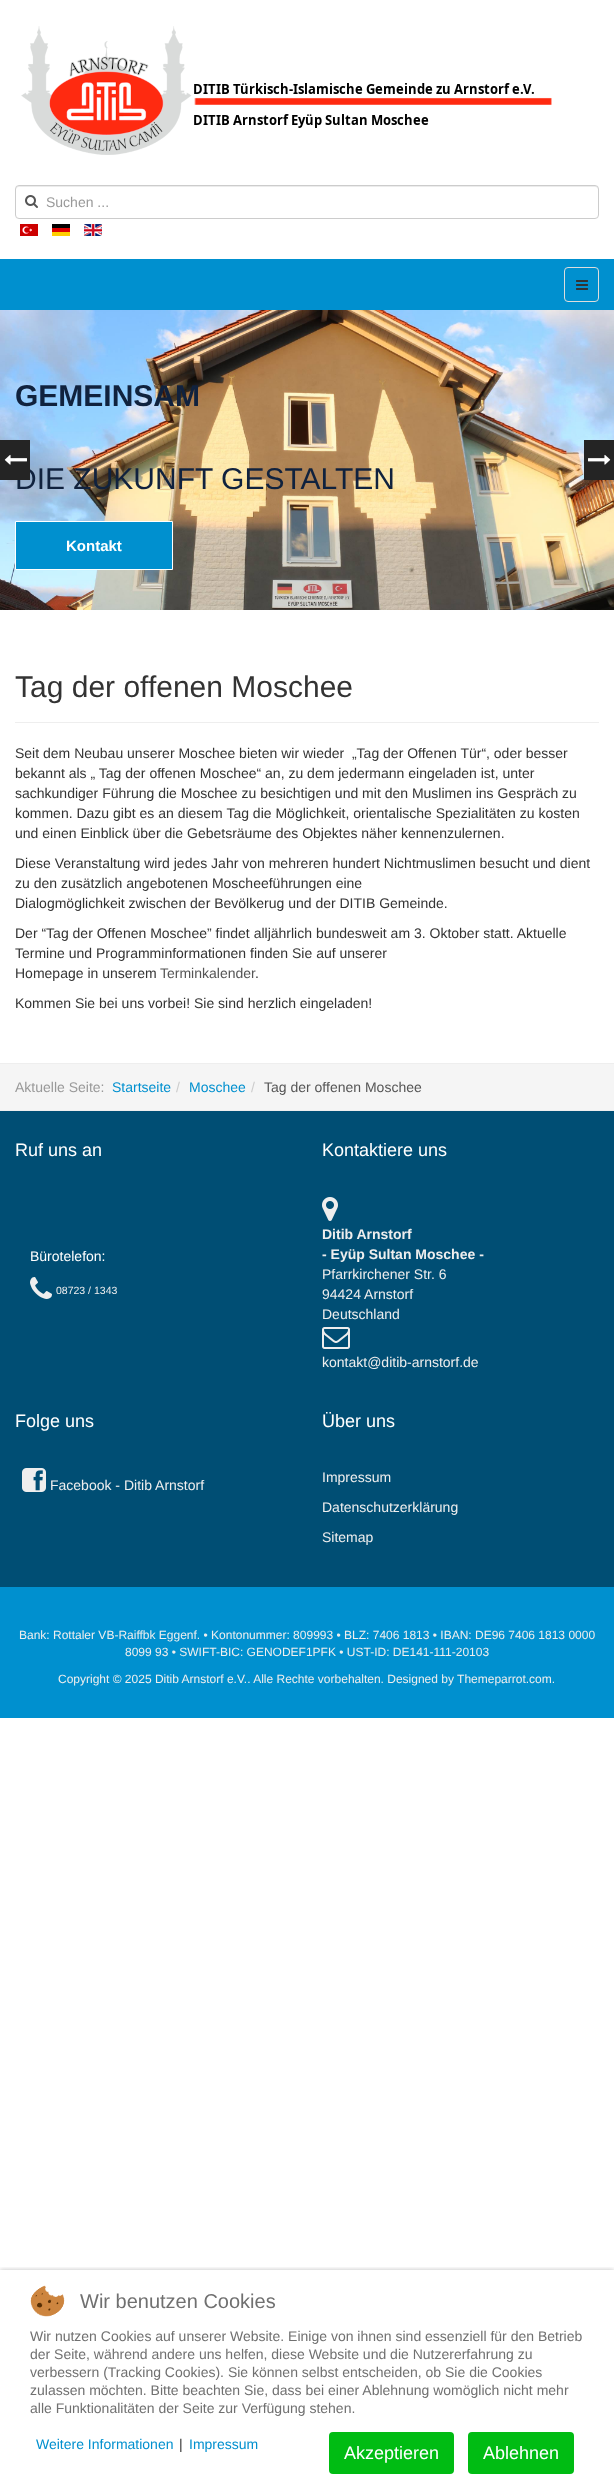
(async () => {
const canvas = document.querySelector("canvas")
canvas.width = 614
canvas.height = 2489
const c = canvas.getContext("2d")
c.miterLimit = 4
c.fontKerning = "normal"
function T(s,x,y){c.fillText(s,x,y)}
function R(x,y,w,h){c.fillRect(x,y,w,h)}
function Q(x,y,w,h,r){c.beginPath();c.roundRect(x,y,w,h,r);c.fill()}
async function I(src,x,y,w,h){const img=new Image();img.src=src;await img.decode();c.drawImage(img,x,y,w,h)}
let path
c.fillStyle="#fff"
R(0,0,614,2489)
await I("1.png",21,26,531,129)
c.fillStyle="#ececec"
path = new Path2D("M19 187h576c2 0 3 1 3 3v-1c0-2-1-3-3-3h-576c-2 0-3 1-3 3v1c0-2 1-3 3-3z")
c.fill(path)
c.beginPath()
c.roundRect(15.5,185.5,583,33,3.5)
c.strokeStyle="#ccc"
c.stroke()
await I("2.png",25,195,13,13)
c.font="14px Liberation Sans"
c.fillStyle="#999"
T("Suchen ...",46,207)
await I("3.png",20,224,18,12)
await I("4.png",52,224,18,12)
await I("5.png",84,224,18,12)
c.fillStyle="#0090cf"
R(0,259,614,51)
c.beginPath()
c.roundRect(564.5,267.5,34,34,3.5)
c.strokeStyle="#ddd"
c.stroke()
await I("6.png",576,280,12,10)
await I("7.png",0,310,614,300)
c.font="bold 30px Liberation Sans"
c.fillStyle="#10223e"
T("GEMEINSAM",15,406)
c.font="30px Liberation Sans"
T("DIE ZUKUNFT GESTALTEN",15,489)
c.fillStyle="#0090cf"
c.beginPath()
c.rect(15.5,521.5,157,48)
c.fill()
c.strokeStyle="#fff"
c.stroke()
c.font="bold 15px Liberation Sans"
c.fillStyle="#fff"
T("Kontakt",66,551)
c.fillStyle="#242424"
R(0,440,30,40)
await I("8.png",4,454,23,11)
R(584,440,30,40)
await I("9.png",588,454,23,11)
c.fillStyle="#eee"
R(15,722,584,1)
c.font="30px Liberation Sans"
c.fillStyle="#333"
T("Tag der offenen Moschee",15,697)
c.font="14px Liberation Sans"
T("Seit dem Neubau unserer Moschee bieten wir wieder  „Tag der Offenen Tür“, oder besser",15,758)
T("bekannt als „ Tag der offenen Moschee“ an, zu dem jedermann eingeladen ist, unter",15,778)
T("sachkundiger Führung die Moschee zu besichtigen und mit den Muslimen ins Gespräch zu",15,798)
T("kommen. Dazu gibt es an diesem Tag die Möglichkeit, orientalische Spezialitäten zu kosten",15,818)
T("und einen Einblick über die Gebetsräume des Objektes näher kennenzulernen.",15,838)
T("Diese Veranstaltung wird jedes Jahr von mehreren hundert Nichtmuslimen besucht und dient",15,868)
T("zu den zusätzlich angebotenen Moscheeführungen eine",15,888)
T("Dialogmöglichkeit zwischen der Bevölkerug und der DITIB Gemeinde.",15,908)
T("Der “Tag der Offenen Moschee” findet alljährlich bundesweit am 3. Oktober statt. Aktuelle",15,938)
T("Termine und Programminformationen finden Sie auf unserer",15,958)
T("Homepage in unserem",15,978)
c.fillStyle="#555"
T("Terminkalender",160,978)
c.fillStyle="#333"
T(".",255,978)
T("Kommen Sie bei uns vorbei! Sie sind herzlich eingeladen!",15,1008)
c.fillStyle="#f5f5f5"
R(0,1064,614,46)
c.fillStyle="#eee"
R(0,1063,614,1)
c.fillStyle="#999"
T("Aktuelle Seite:",15,1092)
c.fillStyle="#0090cf"
T("Startseite",112,1092)
c.fillStyle="#ccc"
T("/",176,1092)
c.fillStyle="#0090cf"
T("Moschee",189,1092)
c.fillStyle="#ccc"
T("/",251,1092)
c.fillStyle="#555"
T("Tag der offenen Moschee",264,1092)
c.fillStyle="#004e74"
R(0,1111,614,476)
c.fillStyle="#eee"
R(0,1110,614,1)
c.font="18px Liberation Sans"
c.fillStyle="#fff"
T("Ruf uns an",15,1156)
c.font="14px Liberation Sans"
T("Bürotelefon:",30,1261)
await I("10.png",30,1277,22,22)
c.font="10.5px Liberation Sans"
c.fillStyle="#eee"
T("08723 / 1343",56,1294)
c.font="18px Liberation Sans"
c.fillStyle="#fff"
T("Kontaktiere uns",322,1156)
await I("11.png",322,1197,16,24)
c.font="bold 14px Liberation Sans"
c.fillStyle="#eee"
T("Ditib Arnstorf",322,1239)
T("- Eyüp Sultan Moschee -",322,1259)
c.font="14px Liberation Sans"
T("Pfarrkirchener Str. 6",322,1279)
T("94424 Arnstorf",322,1299)
T("Deutschland",322,1319)
await I("12.png",322,1327,28,22)
T("kontakt@ditib-arnstorf.de",322,1367)
c.font="18px Liberation Sans"
c.fillStyle="#fff"
T("Folge uns",15,1427)
await I("13.png",22,1468,24,24)
c.font="14px Liberation Sans"
c.fillStyle="#eee"
T("Facebook - Ditib Arnstorf",50,1490)
c.font="18px Liberation Sans"
c.fillStyle="#fff"
T("Über uns",322,1427)
c.font="14px Liberation Sans"
c.fillStyle="#eee"
T("Impressum",322,1482)
T("Datenschutzerklärung",322,1512)
T("Sitemap",322,1542)
c.fillStyle="#0090cf"
R(0,1587,614,131)
c.font="12px Liberation Sans"
c.fillStyle="#eee"
T("Bank: Rottaler VB-Raiffbk Eggenf. • Kontonummer: 809993 • BLZ: 7406 1813 • IBAN: DE96 7406 1813 0000",19,1639)
T("8099 93 • SWIFT-BIC: GENODEF1PFK • UST-ID: DE141-111-20103",125,1656)
T("Copyright © 2025 Ditib Arnstorf e.V.. Alle Rechte vorbehalten. Designed by Themeparrot.com.",58,1683)
c.save()
c.beginPath()
c.rect(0,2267,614,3)
c.clip()
c.fillStyle="#00000040"
c.filter="blur(2.5px)"
c.beginPath()
c.rect(0,2270,614,219)
c.fill()
c.filter="none"
c.restore()
await I("14.png",30,2285,35,32)
c.font="20px Liberation Sans"
c.fillStyle="#707070"
T("Wir benutzen Cookies",80,2308)
c.font="14px Liberation Sans"
T("Wir nutzen Cookies auf unserer Website. Einige von ihnen sind essenziell für den Betrieb",30,2341)
T("der Seite, während andere uns helfen, diese Website und die Nutzererfahrung zu",30,2359)
T("verbessern (Tracking Cookies). Sie können selbst entscheiden, ob Sie die Cookies",30,2377)
T("zulassen möchten. Bitte beachten Sie, dass bei einer Ablehnung womöglich nicht mehr",30,2395)
T("alle Funktionalitäten der Seite zur Verfügung stehen.",30,2413)
c.fillStyle="#0090cf"
T("Weitere Informationen",36,2449)
c.fillStyle="#333"
T("|",179,2449)
c.fillStyle="#0090cf"
T("Impressum",189,2449)
c.fillStyle="#00bc13"
Q(329,2432,125,42,4)
c.font="18px Liberation Sans"
c.fillStyle="#fff"
T("Akzeptieren",344,2459)
c.fillStyle="#00bc13"
Q(468,2432,106,42,4)
c.fillStyle="#fff"
T("Ablehnen",483,2459)
})()
